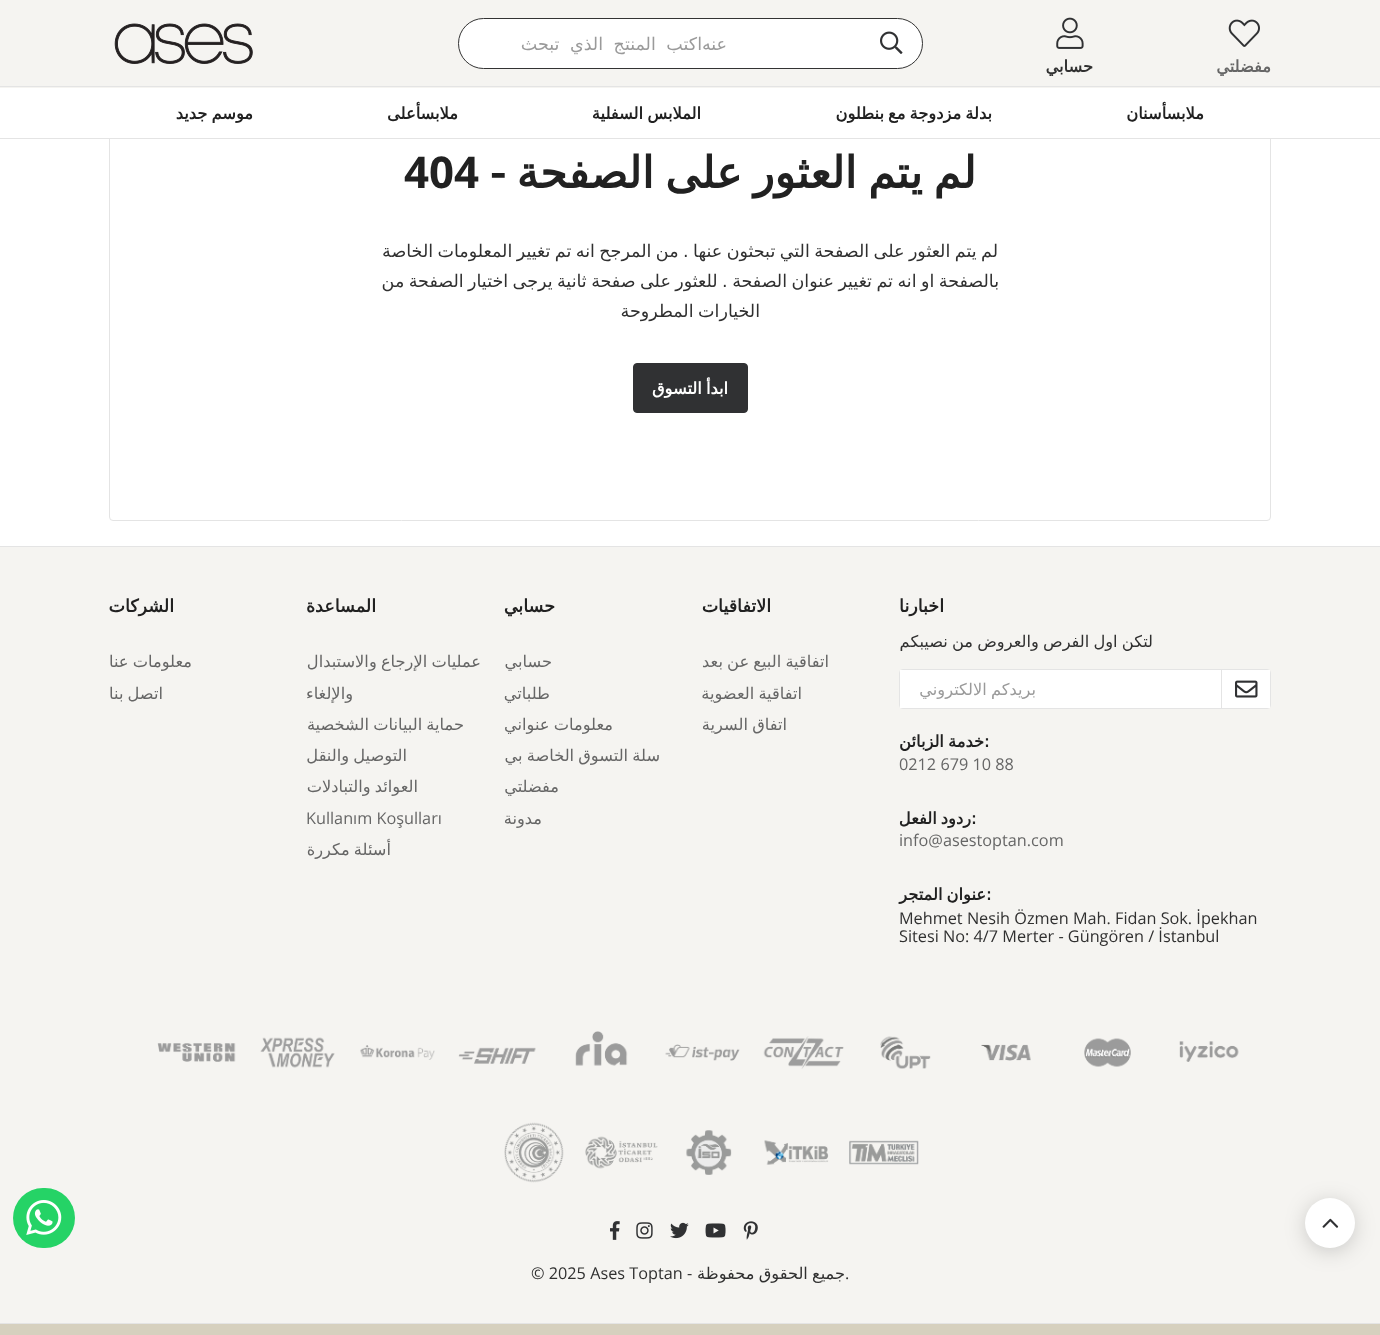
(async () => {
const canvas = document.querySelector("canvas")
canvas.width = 1380
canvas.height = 1335
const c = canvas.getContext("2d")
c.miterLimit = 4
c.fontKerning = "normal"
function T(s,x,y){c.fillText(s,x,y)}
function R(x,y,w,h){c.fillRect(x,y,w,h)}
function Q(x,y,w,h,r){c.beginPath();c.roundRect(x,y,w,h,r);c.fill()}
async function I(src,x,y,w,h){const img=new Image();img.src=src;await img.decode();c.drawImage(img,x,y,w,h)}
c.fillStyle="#fff"
R(0,0,1380,1335)
c.beginPath()
c.roundRect(109.5,-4.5,1161,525,3.5)
c.strokeStyle="#e4e4e4"
c.stroke()
R(109,88,1162,50)
c.fillStyle="#f5f4f1"
R(0,0,1380,88)
c.fillStyle="#e4e4e4"
R(0,86,1380,1)
c.fillStyle="#fff"
c.beginPath()
c.roundRect(458.5,18.5,464,50,25)
c.fill()
c.strokeStyle="#333"
c.stroke()
await I("1.png",880,31,23,23)
c.direction="rtl"
c.font="17.5px DejaVu Sans"
c.fillStyle="#9a9a9a"
T("عنه",727,50)
c.wordSpacing="5px"
T("اكتب المنتج الذي تبحث",702,50)
await I("2.png",114,23,139,41)
await I("3.png",1228,19,32,28)
c.wordSpacing="0px"
c.font="bold 16.25px DejaVu Sans"
c.fillStyle="#666"
T("مفضلتي",1271,72)
await I("4.png",1056,17,28,32)
c.fillStyle="#303030"
T("حسابي",1093,72)
c.fillStyle="#e4e4e4"
R(0,138,1380,1)
c.fillStyle="#212121"
T("ملابسأسنان",1204,119)
c.wordSpacing="-1px"
T("بدلة مزدوجة مع بنطلون",992,119)
T("الملابس السفلية",701,119)
c.wordSpacing="0px"
T("ملابسأعلى",458,119)
c.wordSpacing="-1px"
T("موسم جديد",253,119)
c.wordSpacing="-2.75px"
c.font="bold 43.75px DejaVu Sans"
T("لم يتم العثور على الصفحة -",976,188)
c.wordSpacing="0px"
c.direction="ltr"
c.font="bold 43.75px Open Sans"
T("404",404,188)
c.wordSpacing="-1.1px"
c.direction="rtl"
c.font="17.5px DejaVu Sans"
c.fillStyle="#303030"
T("لم يتم العثور على الصفحة التي تبحثون عنها . من المرجح انه تم تغيير المعلومات الخاصة",998,257)
T("بالصفحة او انه تم تغيير عنوان الصفحة . للعثور على صفحة ثانية يرجى اختيار الصفحة من",999,287)
c.wordSpacing="-1px"
T("الخيارات المطروحة",760,317)
c.fillStyle="#303133"
c.beginPath()
c.roundRect(633.5,363.5,114,49,3.5)
c.fill()
c.strokeStyle="#303133"
c.stroke()
c.font="bold 16.25px DejaVu Sans"
c.fillStyle="#fff"
T("ابدأ التسوق",728,394)
c.fillStyle="#f5f4f1"
R(0,547,1380,776)
c.fillStyle="#e4e4e4"
R(0,546,1380,1)
c.fillStyle="#00000040"
c.filter="blur(12.5px)"
c.beginPath()
c.roundRect(1309,1205,42,43,21)
c.fill()
c.filter="none"
c.fillStyle="#fff"
c.beginPath()
c.arc(1330,1223,25,0,7)
c.fill()
await I("5.png",1322,1218,17,10)
c.wordSpacing="0px"
c.font="bold 17.5px DejaVu Sans"
c.fillStyle="#212121"
T("اخبارنا",944,612)
c.wordSpacing="-1px"
c.font="16.25px DejaVu Sans"
c.fillStyle="#303030"
T("لتكن اول الفرص والعروض من نصيبكم",1153,647)
c.beginPath()
c.roundRect(899.5,669.5,371,39,3.5)
c.strokeStyle="#e4e4e4"
c.stroke()
c.fillStyle="#fff"
R(1222,670,48,38)
c.fillStyle="#e4e4e4"
R(1221,670,1,38)
await I("6.png",1235,680,23,18)
c.fillStyle="#fff"
R(900,670,321,38)
c.fillStyle="#9a9a9a"
T("بريدكم الالكتروني",1036,695)
c.wordSpacing="0px"
c.direction="ltr"
c.font="bold 16.25px DejaVu Sans"
c.fillStyle="#212121"
T(":",984,747)
c.wordSpacing="-1px"
c.direction="rtl"
T("خدمة الزبائن",984,747)
c.wordSpacing="0px"
c.direction="ltr"
c.font="16.25px Open Sans"
c.fillStyle="#666"
T("0212 679 10 88",899,770)
c.font="bold 16.25px DejaVu Sans"
c.fillStyle="#212121"
T(":",971,824)
c.wordSpacing="-1px"
c.direction="rtl"
T("ردود الفعل",971,824)
c.wordSpacing="0px"
c.direction="ltr"
c.font="16.25px Open Sans"
c.fillStyle="#666"
T("info@asestoptan.com",899,846)
c.font="bold 16.25px DejaVu Sans"
c.fillStyle="#212121"
T(":",986,900)
c.wordSpacing="-1px"
c.direction="rtl"
T("عنوان المتجر",986,900)
c.wordSpacing="0px"
c.direction="ltr"
c.font="16.25px Open Sans"
c.fillStyle="#303030"
T("Mehmet Nesih Özmen Mah. Fidan Sok. İpekhan",899,924)
T("Sitesi No: 4/7 Merter - Güngören / İstanbul",899,942)
c.direction="rtl"
c.font="bold 17.5px DejaVu Sans"
c.fillStyle="#212121"
T("الاتفاقيات",771,612)
c.wordSpacing="-1px"
c.font="16.25px DejaVu Sans"
c.fillStyle="#666"
T("اتفاقية البيع عن بعد",829,667)
T("اتفاقية العضوية",802,699)
T("اتفاق السرية",787,730)
c.wordSpacing="0px"
c.font="bold 17.5px DejaVu Sans"
c.fillStyle="#212121"
T("حسابي",555,612)
c.font="16.25px DejaVu Sans"
c.fillStyle="#666"
T("حسابي",552,667)
T("طلباتي",550,699)
c.wordSpacing="-1px"
T("معلومات عنواني",613,730)
T("سلة التسوق الخاصة بي",660,761)
c.wordSpacing="0px"
T("مفضلتي",559,792)
T("مدونة",542,824)
c.font="bold 17.5px DejaVu Sans"
c.fillStyle="#212121"
T("المساعدة",376,612)
c.wordSpacing="-1px"
c.font="16.25px DejaVu Sans"
c.fillStyle="#666"
T("عمليات الإرجاع والاستبدال",481,667)
c.wordSpacing="0px"
T("والإلغاء",353,699)
c.wordSpacing="-1px"
T("حماية البيانات الشخصية",464,730)
T("التوصيل والنقل",407,761)
T("العوائد والتبادلات",418,792)
c.wordSpacing="0px"
c.direction="ltr"
c.font="16.25px Open Sans"
T("Kullanım Koşulları",306,824)
c.wordSpacing="-1px"
c.direction="rtl"
c.font="16.25px DejaVu Sans"
T("أسئلة مكررة",391,855)
c.wordSpacing="0px"
c.font="bold 17.5px DejaVu Sans"
c.fillStyle="#212121"
T("الشركات",174,612)
c.wordSpacing="-1px"
c.font="16.25px DejaVu Sans"
c.fillStyle="#666"
T("معلومات عنا",192,667)
T("اتصل بنا",163,699)
await I("7.png",1179,1041,60,21)
await I("8.png",1084,1038,47,29)
await I("9.png",981,1044,50,17)
await I("10.png",880,1036,51,33)
await I("11.png",763,1036,81,33)
await I("12.png",665,1044,75,17)
await I("13.png",575,1031,53,35)
await I("14.png",458,1047,78,17)
await I("15.png",360,1045,75,15)
await I("16.png",260,1037,75,31)
await I("17.png",157,1043,79,19)
await I("18.png",849,1140,70,25)
await I("19.png",764,1140,65,25)
await I("20.png",686,1130,46,45)
await I("21.png",585,1136,73,33)
await I("22.png",504,1122,60,61)
await I("23.png",743,1221,15,19)
await I("24.png",705,1223,21,15)
await I("25.png",670,1222,19,17)
await I("26.png",636,1222,17,17)
await I("27.png",610,1221,10,19)
c.wordSpacing="0px"
c.direction="ltr"
c.font="16.25px Open Sans"
c.fillStyle="#303030"
T(".",845,1279)
c.wordSpacing="-1px"
c.direction="rtl"
c.font="16.25px DejaVu Sans"
T("جميع الحقوق محفوظة",845,1279)
c.wordSpacing="0px"
c.direction="ltr"
c.font="16.25px Open Sans"
T("© 2025 Ases Toptan -",531,1279)
c.fillStyle="#25d366"
Q(13,1188,62,60,30)
await I("28.png",26,1200,36,35)
c.fillStyle="#d6d0be"
R(0,1324,1380,11)
c.fillStyle="#e4e4e4"
R(0,1323,1380,1)
})()
